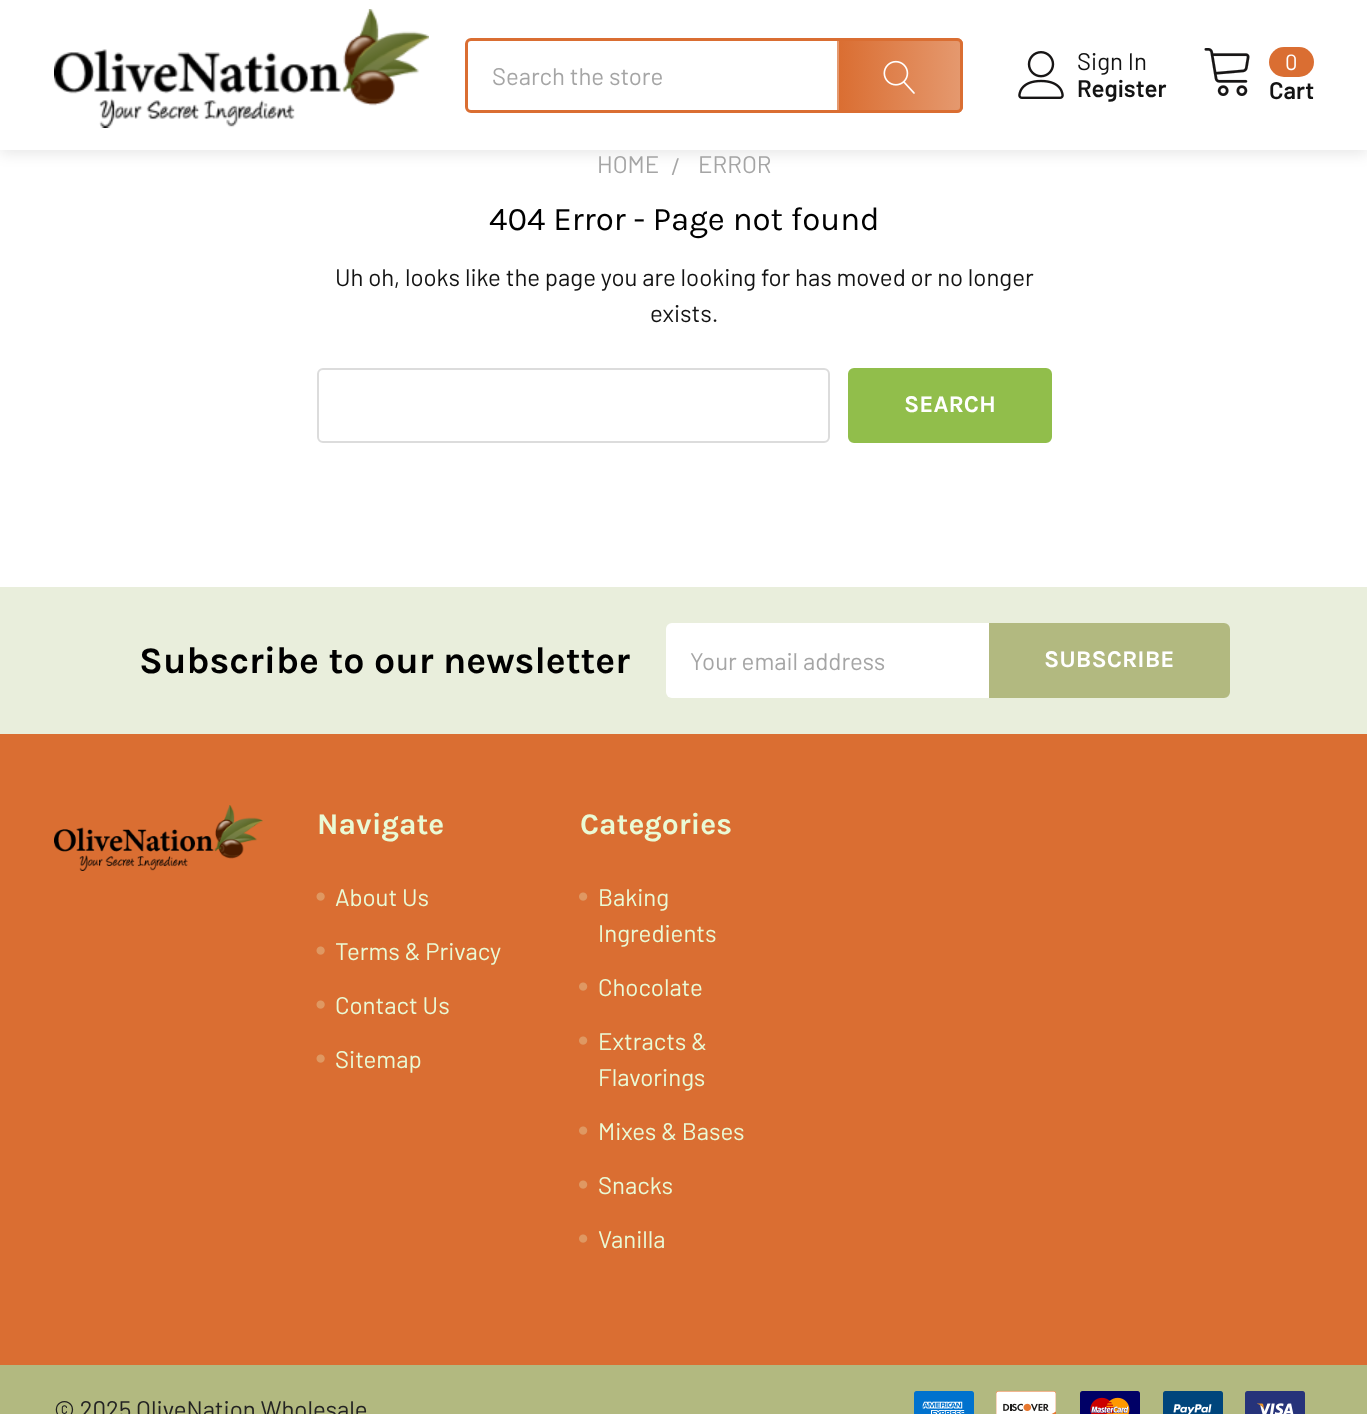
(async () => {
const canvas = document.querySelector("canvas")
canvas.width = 1367
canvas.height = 1414
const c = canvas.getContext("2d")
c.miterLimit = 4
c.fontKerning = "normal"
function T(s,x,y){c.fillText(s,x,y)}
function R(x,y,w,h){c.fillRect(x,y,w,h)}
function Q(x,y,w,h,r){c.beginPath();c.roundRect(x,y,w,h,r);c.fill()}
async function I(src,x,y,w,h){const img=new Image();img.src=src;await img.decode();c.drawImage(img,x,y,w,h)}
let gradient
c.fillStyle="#fff"
R(0,0,1367,1414)
c.fillStyle="#0000001a"
c.filter="blur(7.5px)"
c.beginPath()
c.rect(0,3,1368,150)
c.fill()
c.filter="none"
c.fillStyle="#fff"
R(0,0,1367,150)
await I("1.png",54,9,375,119)
c.beginPath()
c.roundRect(466.5,39.5,495,72,4.5)
c.strokeStyle="#da6e32"
c.lineWidth=3
c.stroke()
c.font="24px Barlow"
c.fillStyle="#a5a5a5"
T("Search the store",492,85)
gradient = c.createLinearGradient(716,75,839,75)
gradient.addColorStop(0,"#da6e32")
gradient.addColorStop(1,"#da6e32b3")
c.fillStyle = gradient
R(837,38,2,75)
c.save()
c.beginPath()
c.roundRect(837,38,126,75,[0,6,6,0])
c.clip()
gradient = c.createLinearGradient(839,75,962,75)
gradient.addColorStop(0,"#da6e32")
gradient.addColorStop(1,"#da6e32b3")
c.fillStyle = gradient
R(839,38,123,75)
gradient = c.createLinearGradient(962,75,1085,75)
gradient.addColorStop(0,"#da6e32")
gradient.addColorStop(1,"#da6e32b3")
c.fillStyle = gradient
R(962,38,1,75)
c.restore()
await I("2.png",883,60,32,34)
await I("3.png",1018,51,46,48)
c.fillStyle="#131313"
T("Sign In",1077,70)
c.font="600 24px Barlow"
T("Register",1077,97)
await I("4.png",1204,48,46,48)
c.fillStyle="#da6e32"
Q(1269,47,45,30,15)
c.font="22px Barlow"
c.fillStyle="#fff"
T("0",1285,70)
c.font="600 24px Barlow"
c.fillStyle="#131313"
T("Cart",1269,99)
c.font="24px Barlow"
c.fillStyle="#a5a5a5"
T("HOME",597,173)
T("/",671,175)
T("ERROR",698,173)
c.font="33px Karla"
c.fillStyle="#000"
T("404 Error - Page not found",489,230)
c.font="24px Barlow"
c.fillStyle="#131313"
T("Uh oh, looks like the page you are looking for has moved or no longer",335,286)
T("exists.",650,322)
c.beginPath()
c.roundRect(318,369,511,73,5)
c.strokeStyle="#dcdcdc"
c.lineWidth=2
c.stroke()
c.fillStyle="#91be4b"
c.beginPath()
c.roundRect(849,369,202,73,5)
c.fill()
c.strokeStyle="#91be4b"
c.stroke()
c.font="bold 24px Karla"
c.fillStyle="#fff"
T("SEARCH",904,412)
c.fillStyle="#da6e32"
R(0,734,1367,631)
c.fillStyle="#e9eedc"
R(0,587,1367,147)
c.font="bold 37.5px Karla"
c.fillStyle="#000"
T("Subscribe to our newsletter",139,673)
c.fillStyle="#fff"
c.beginPath()
c.roundRect(666,623,323,75,[6,0,0,6])
c.fill()
c.font="24px Barlow"
c.fillStyle="#a5a5a5"
T("Your email address",690,670)
c.fillStyle="#b2b980"
c.beginPath()
c.roundRect(990,624,239,73,[0,5,5,0])
c.fill()
c.strokeStyle="#b2b980"
c.stroke()
c.font="bold 24px Karla"
c.fillStyle="#fff"
T("SUBSCRIBE",1044,667)
await I("5.png",54,805,209,66)
c.font="bold 30px Karla"
c.fillStyle="#eafad5"
T("Navigate",317,834)
await I("6.png",316,892,9,9)
c.font="24px Barlow"
T("About Us",335,906)
await I("6.png",316,946,9,9)
T("Terms & Privacy",335,960)
await I("6.png",316,1000,9,9)
T("Contact Us",335,1014)
await I("6.png",316,1054,9,9)
T("Sitemap",335,1068)
c.font="bold 30px Karla"
T("Categories",580,834)
await I("7.png",579,892,9,9)
c.font="24px Barlow"
T("Baking",598,906)
T("Ingredients",598,942)
await I("7.png",579,982,9,9)
T("Chocolate",598,996)
await I("7.png",579,1036,9,9)
T("Extracts &",598,1050)
T("Flavorings",598,1086)
await I("7.png",579,1126,9,9)
T("Mixes & Bases",598,1140)
await I("7.png",579,1180,9,9)
T("Snacks",598,1194)
await I("7.png",579,1234,9,9)
T("Vanilla",598,1248)
c.fillStyle="#b2b980"
R(0,1365,1367,49)
c.fillStyle="#222"
T("© 2025 OliveNation Wholesale",54,1418)
await I("8.png",914,1391,60,23)
await I("9.png",996,1390,60,24)
await I("10.png",1080,1391,60,23)
await I("11.png",1163,1391,60,23)
await I("12.png",1245,1391,60,23)
})()
